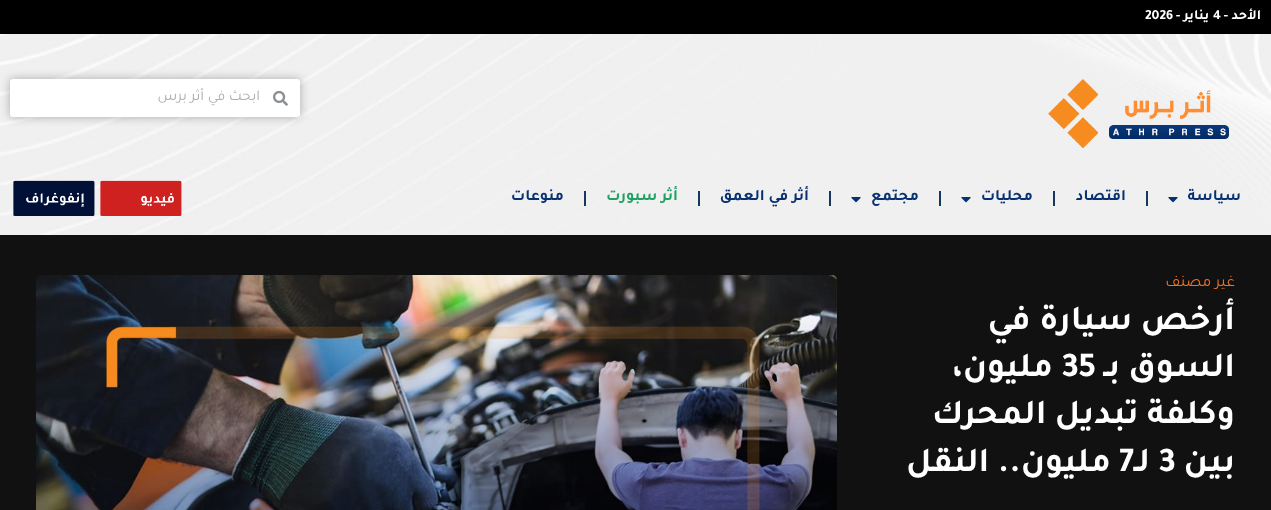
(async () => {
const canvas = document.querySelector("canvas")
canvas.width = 1271
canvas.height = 510
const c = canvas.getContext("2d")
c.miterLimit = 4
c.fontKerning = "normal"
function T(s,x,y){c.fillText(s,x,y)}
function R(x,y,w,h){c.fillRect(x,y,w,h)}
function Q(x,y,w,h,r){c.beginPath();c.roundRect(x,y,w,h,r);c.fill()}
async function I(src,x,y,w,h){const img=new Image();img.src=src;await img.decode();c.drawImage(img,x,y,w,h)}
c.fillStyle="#111"
R(0,0,1271,510)
c.fillStyle="#000"
R(0,0,1271,34)
c.direction="rtl"
c.font="bold 14px Tajawal"
c.fillStyle="#fff"
T("الأحد -",1261,19)
c.direction="ltr"
T("4",1213,19)
c.direction="rtl"
T("يناير -",1209,19)
c.direction="ltr"
T("2026",1145,19)
await I("1.png",0,34,1271,201)
c.fillStyle="#0000004a"
c.filter="blur(5px)"
c.beginPath()
c.roundRect(10,79,290,38,3)
c.fill()
c.filter="none"
c.fillStyle="#fff"
Q(10,79,290,38,3)
await I("2.png",273,90,15,16)
c.direction="rtl"
c.font="15px Tajawal"
c.fillStyle="#afafaf"
T("ابحث في أثر برس",260,100)
await I("3.png",100,180,82,36)
await I("4.png",13,180,82,36)
await I("5.png",1048,79,181,69)
c.font="bold 16px Tajawal"
c.fillStyle="#073171"
T("سياسة",1241,200)
await I("6.png",1168,197,10,6)
c.fillStyle="#163860"
R(1146,191,2,15)
c.fillStyle="#073171"
T("اقتصاد",1126,200)
c.fillStyle="#163860"
R(1053,191,2,15)
c.fillStyle="#073171"
T("محليات",1033,200)
await I("6.png",961,197,10,6)
c.fillStyle="#163860"
R(939,191,2,15)
c.fillStyle="#073171"
T("مجتمع",919,200)
await I("6.png",851,197,10,6)
c.fillStyle="#163860"
R(829,191,2,15)
c.fillStyle="#073171"
T("أثر في العمق",809,200)
c.fillStyle="#163860"
R(698,191,2,15)
c.fillStyle="#1fa065"
T("أثر سبورت",678,200)
c.fillStyle="#163860"
R(584,191,2,15)
c.fillStyle="#073171"
T("منوعات",564,200)
c.font="16px Tajawal"
c.fillStyle="#f37021"
T("غير مصنف",1235,286)
c.font="bold 35px Tajawal"
c.fillStyle="#fff"
T("أرخص سيارة في",1235,329)
T("السوق بـ",1235,376)
c.direction="ltr"
T("35",1061,376)
c.direction="rtl"
T("مليون،",1053,376)
T("وكلفة تبديل المحرك",1235,423)
T("بين",1235,471)
c.direction="ltr"
T("3",1158,471)
T("7",1119,471)
c.direction="rtl"
T("لـ",1150,471)
T("مليون.. النقل",1111,471)
await I("7.png",36,275,801,235)
})()
